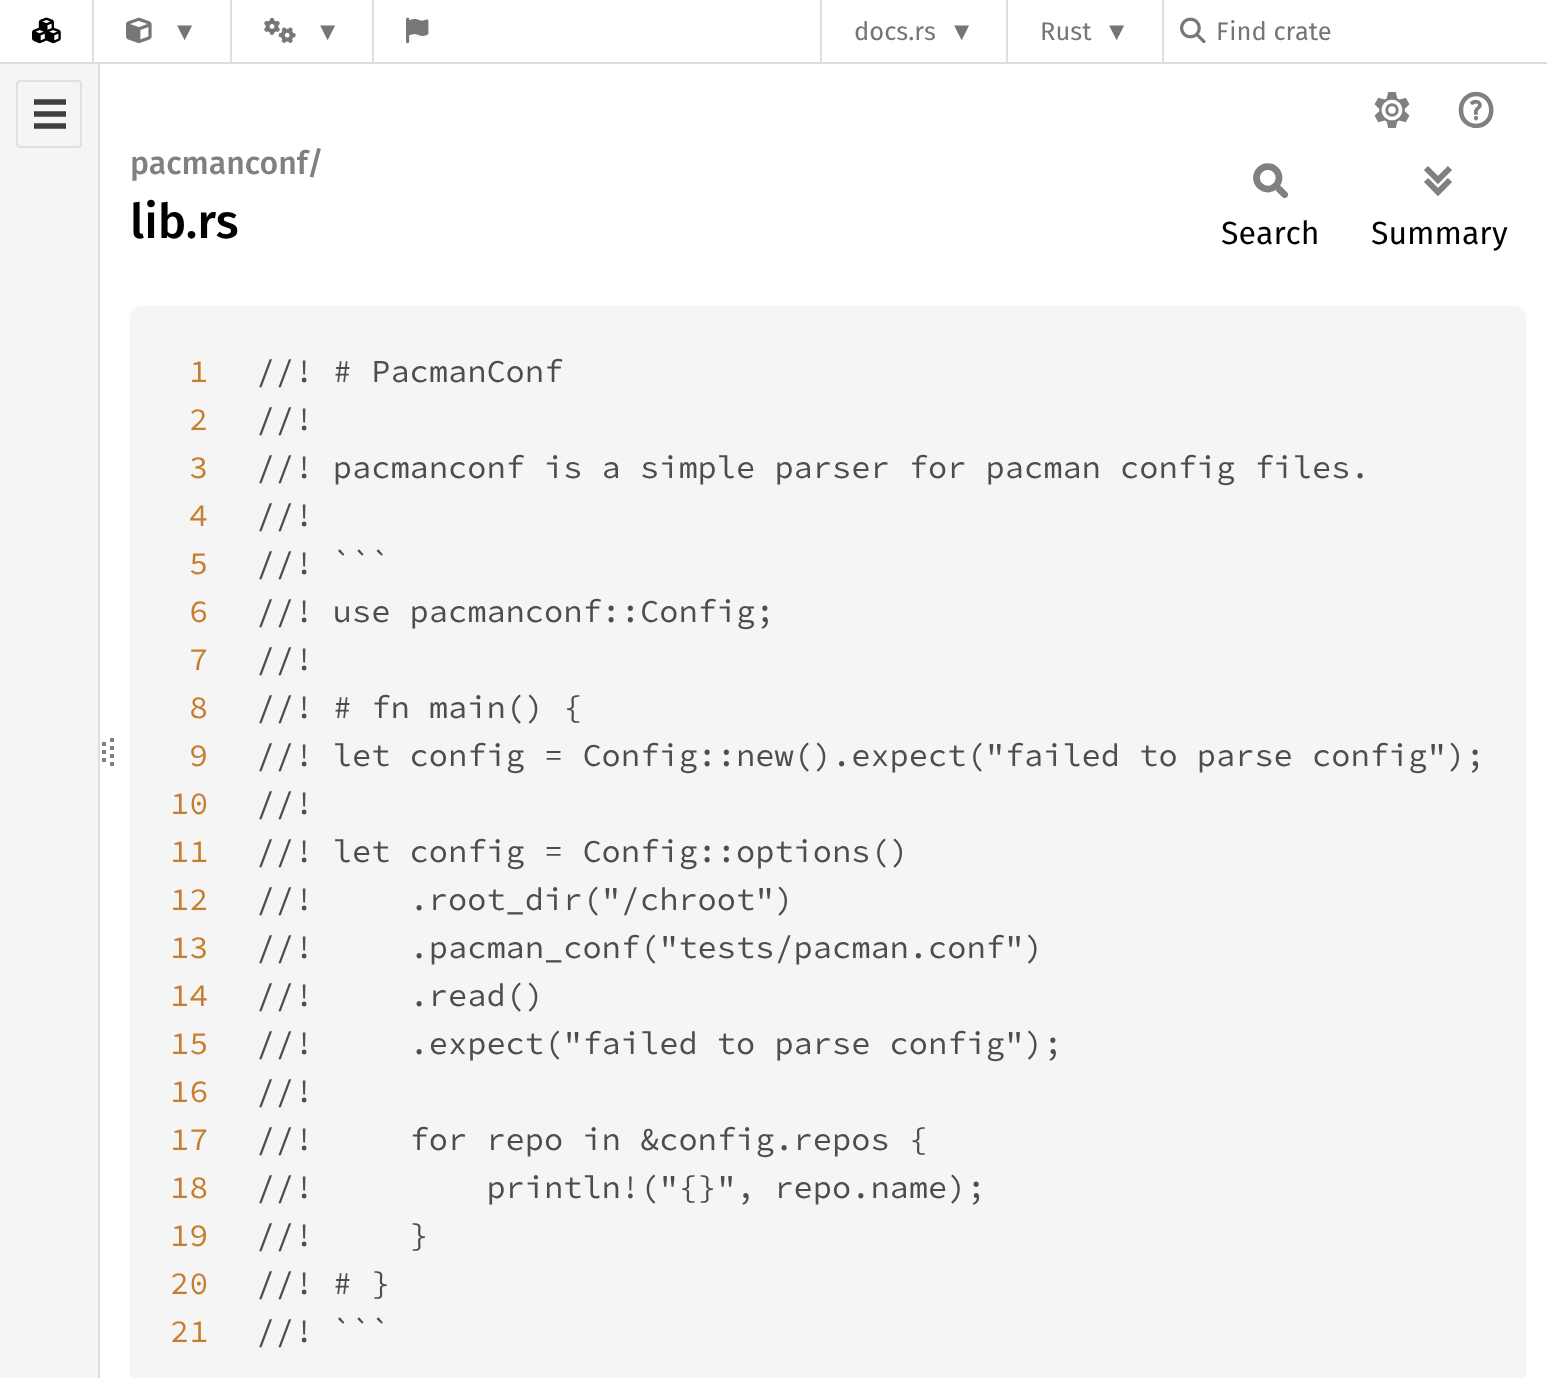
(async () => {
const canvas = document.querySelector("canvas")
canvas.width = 1547
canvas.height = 1378
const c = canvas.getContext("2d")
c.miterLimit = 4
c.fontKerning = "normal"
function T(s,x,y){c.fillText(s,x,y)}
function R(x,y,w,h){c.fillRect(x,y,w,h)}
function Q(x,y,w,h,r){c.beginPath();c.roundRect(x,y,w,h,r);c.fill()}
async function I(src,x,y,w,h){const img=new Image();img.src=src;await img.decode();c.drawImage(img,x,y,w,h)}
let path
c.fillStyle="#fff"
R(0,0,1547,1378)
c.fillStyle="#ddd"
R(0,62,1547,2)
await I("1.png",32,17,29,27)
R(92,0,2,62)
await I("2.png",126,17,26,27)
c.font="25.5px Liberation Sans"
c.fillStyle="#757575"
T("▼",172,40)
c.fillStyle="#ddd"
R(230,0,2,62)
await I("3.png",264,18,32,25)
c.fillStyle="#757575"
T("▼",315,40)
c.fillStyle="#ddd"
R(372,0,2,62)
await I("4.png",406,17,23,27)
R(820,0,2,62)
c.font="25.5px Fira Sans"
c.fillStyle="#757575"
T("docs.rs",854,40)
c.font="25.5px Liberation Sans"
T("▼",949,40)
c.fillStyle="#ddd"
R(1006,0,2,62)
c.font="25.5px Fira Sans"
c.fillStyle="#757575"
T("Rust",1040,40)
c.font="25.5px Liberation Sans"
T("▼",1104,40)
c.fillStyle="#ddd"
R(1162,0,2,62)
await I("5.png",1180,17,26,27)
c.font="25.5px Fira Sans"
c.fillStyle="#757575"
T("Find crate",1216,40)
c.fillStyle="#f5f5f5"
R(0,64,98,1314)
c.fillStyle="#ddd"
R(98,64,2,1314)
path = new Path2D("M104 742v4m0 4v4m0 4v4")
c.strokeStyle="#808080"
c.lineWidth=4
c.stroke(path)
path = new Path2D("M112 738v32")
c.setLineDash([4,4])
c.stroke(path)
c.beginPath()
c.roundRect(17,81,64,66,3)
c.strokeStyle="#e0e0e0"
c.lineWidth=2
c.setLineDash([])
c.stroke()
await I("6.png",34,99,32,30)
c.font="500 32px Fira Sans"
c.fillStyle="#808080"
T("pacmanconf/",130,174)
c.font="500 48px Fira Sans"
c.fillStyle="#000"
T("lib.rs",130,238)
await I("7.png",1374,92,36,36)
await I("8.png",1458,92,36,36)
await I("9.png",1253,163,35,35)
c.font="32px Fira Sans"
T("Search",1221,244)
await I("10.png",1424,166,28,31)
T("Summary",1371,244)
c.fillStyle="#f5f5f5"
Q(130,306,1396,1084,12)
c.font="32px Source Code Pro"
c.fillStyle="#4d4d4c"
T("//! # PacmanConf",256,382)
c.fillStyle="#c67e2d"
T("2",189,430)
c.fillStyle="#4d4d4c"
T("//!",256,430)
c.fillStyle="#c67e2d"
T("3",189,478)
c.fillStyle="#4d4d4c"
T("//! pacmanconf is a simple parser for pacman config files.",256,478)
c.fillStyle="#c67e2d"
T("4",189,526)
c.fillStyle="#4d4d4c"
T("//!",256,526)
c.fillStyle="#c67e2d"
T("5",189,574)
c.fillStyle="#4d4d4c"
T("//! ```",256,574)
c.fillStyle="#c67e2d"
T("6",189,622)
c.fillStyle="#4d4d4c"
T("//! use pacmanconf::Config;",256,622)
c.fillStyle="#c67e2d"
T("7",189,670)
c.fillStyle="#4d4d4c"
T("//!",256,670)
c.fillStyle="#c67e2d"
T("8",189,718)
c.fillStyle="#4d4d4c"
T("//! # fn main() {",256,718)
c.fillStyle="#c67e2d"
T("9",189,766)
c.fillStyle="#4d4d4c"
T("//! let config = Config::new().expect(\"failed to parse config\");",256,766)
c.fillStyle="#c67e2d"
T("10",170,814)
c.fillStyle="#4d4d4c"
T("//!",256,814)
c.fillStyle="#c67e2d"
T("11",170,862)
c.fillStyle="#4d4d4c"
T("//! let config = Config::options()",256,862)
c.fillStyle="#c67e2d"
T("12",170,910)
c.fillStyle="#4d4d4c"
T("//!     .root_dir(\"/chroot\")",256,910)
c.fillStyle="#c67e2d"
T("13",170,958)
c.fillStyle="#4d4d4c"
T("//!     .pacman_conf(\"tests/pacman.conf\")",256,958)
c.fillStyle="#c67e2d"
T("14",170,1006)
c.fillStyle="#4d4d4c"
T("//!     .read()",256,1006)
c.fillStyle="#c67e2d"
T("15",170,1054)
c.fillStyle="#4d4d4c"
T("//!     .expect(\"failed to parse config\");",256,1054)
c.fillStyle="#c67e2d"
T("16",170,1102)
c.fillStyle="#4d4d4c"
T("//!",256,1102)
c.fillStyle="#c67e2d"
T("17",170,1150)
c.fillStyle="#4d4d4c"
T("//!     for repo in &config.repos {",256,1150)
c.fillStyle="#c67e2d"
T("18",170,1198)
c.fillStyle="#4d4d4c"
T("//!         println!(\"{}\", repo.name);",256,1198)
c.fillStyle="#c67e2d"
T("19",170,1246)
c.fillStyle="#4d4d4c"
T("//!     }",256,1246)
c.fillStyle="#c67e2d"
T("20",170,1294)
c.fillStyle="#4d4d4c"
T("//! # }",256,1294)
c.fillStyle="#c67e2d"
T("21",170,1342)
c.fillStyle="#4d4d4c"
T("//! ```",256,1342)
c.fillStyle="#c67e2d"
T("1",189,382)
})()
